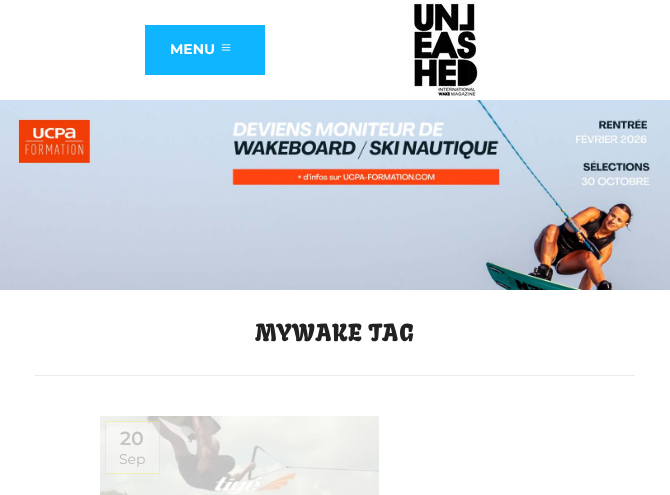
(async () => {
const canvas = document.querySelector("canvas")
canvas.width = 670
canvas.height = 495
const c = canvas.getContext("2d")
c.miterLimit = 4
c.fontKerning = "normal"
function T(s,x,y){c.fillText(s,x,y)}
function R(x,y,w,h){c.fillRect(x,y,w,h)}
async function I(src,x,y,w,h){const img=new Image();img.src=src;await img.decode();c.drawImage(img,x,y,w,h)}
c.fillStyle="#fff"
R(0,0,670,495)
await I("1.png",0,100,670,190)
c.fillStyle="#0fb6ff"
R(145,25,120,50)
c.font="bold 14px Montserrat"
c.fillStyle="#fff"
T("MENU",170,54)
await I("2.png",221,44,10,7)
await I("3.png",408,0,72,96)
c.letterSpacing="1px"
c.font="23px Kavoon"
c.fillStyle="#222"
T("MYWAKE TAG",255,341)
c.fillStyle="#eaeaea"
R(35,375,600,1)
await I("4.png",100,416,279,79)
c.fillStyle="#ffffff40"
R(105,421,55,53)
c.strokeStyle="#f0d70540"
c.strokeRect(105.5,421.5,54,52)
c.letterSpacing="0px"
c.font="600 19px Montserrat"
c.fillStyle="#c5c5c3"
T("20",120,445)
c.font="14px Montserrat"
c.fillStyle="#bbbcba"
T("Sep",119,464)
})()
